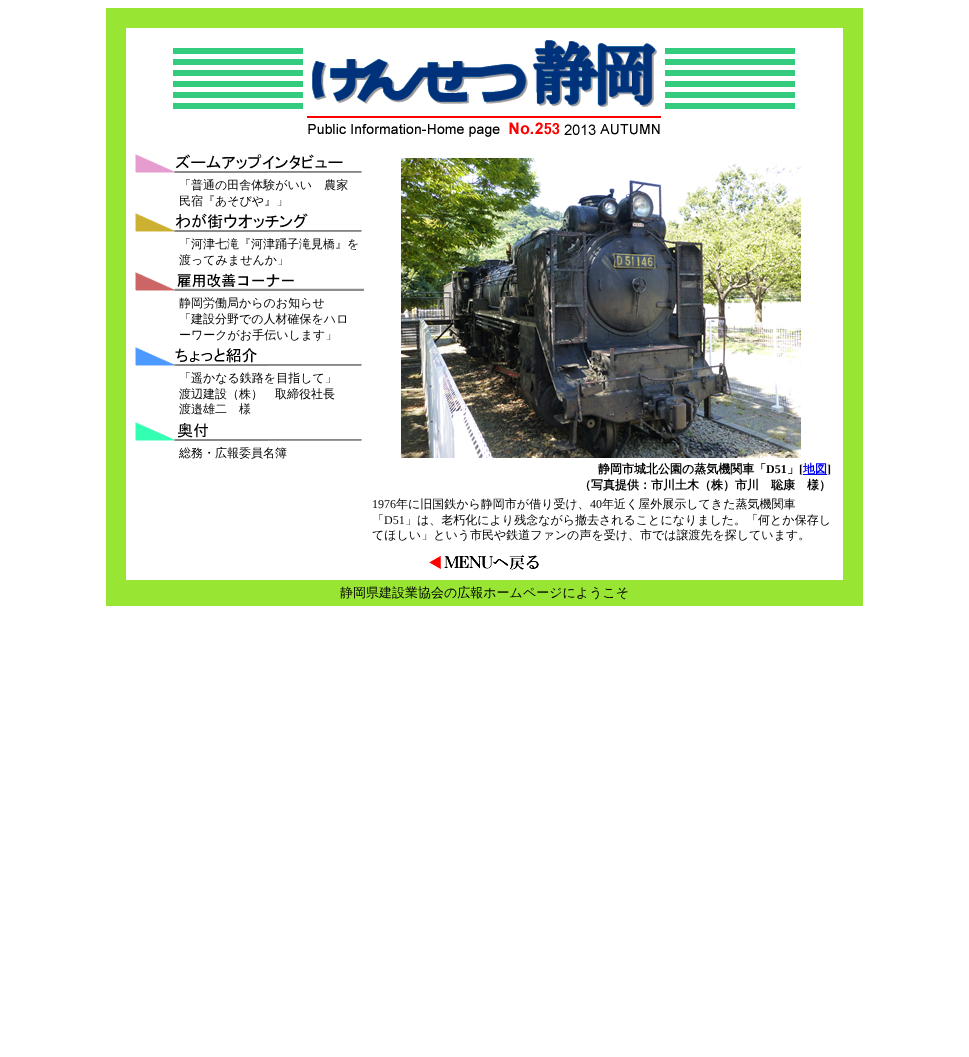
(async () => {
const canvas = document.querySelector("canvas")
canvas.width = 969
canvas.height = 1057
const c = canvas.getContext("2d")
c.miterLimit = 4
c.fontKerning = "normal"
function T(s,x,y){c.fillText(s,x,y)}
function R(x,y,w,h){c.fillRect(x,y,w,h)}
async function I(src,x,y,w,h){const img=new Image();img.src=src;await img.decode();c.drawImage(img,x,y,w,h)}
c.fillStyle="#fff"
R(0,0,969,1057)
c.fillStyle="#99e533"
R(106,8,20,598)
R(126,8,717,20)
R(843,8,20,598)
await I("1.png",173,40,622,69)
await I("2.png",307,116,354,21)
await I("3.png",135,154,40,19)
await I("4.png",175,154,187,19)
c.font="500 12px WenQuanYi Zen Hei"
c.fillStyle="#000"
T("「普通の田舎体験がいい　農家",179,189)
T("民宿『あそびや』」",179,205)
await I("5.png",135,213,40,19)
await I("6.png",175,213,187,19)
T("「河津七滝『河津踊子滝見橋』を",179,248)
T("渡ってみませんか」",179,264)
await I("7.png",135,272,40,19)
await I("8.png",175,273,189,18)
T("静岡労働局からのお知らせ",179,307)
T("「建設分野での人材確保をハロ",179,323)
T("ーワークがお手伝いします」",179,339)
await I("9.png",135,347,40,19)
await I("10.png",175,348,187,18)
T("「遥かなる鉄路を目指して」",179,382)
T("渡辺建設（株）　取締役社長",179,398)
T("渡邉雄二　様",179,413)
await I("11.png",135,422,40,19)
await I("12.png",175,423,187,18)
T("総務・広報委員名簿",179,457)
await I("13.png",401,158,400,300)
c.font="bold 12px WenQuanYi Zen Hei"
T("静岡市城北公園の蒸気機関車「",598,473)
c.font="bold 12px Liberation Serif"
T("D51",766,473)
c.font="bold 12px WenQuanYi Zen Hei"
T("」",787,473)
c.font="bold 12px Liberation Serif"
T("[",799,473)
c.fillStyle="#00e"
R(803,474,24,1)
c.font="bold 12px WenQuanYi Zen Hei"
T("地図",803,473)
c.font="bold 12px Liberation Serif"
c.fillStyle="#000"
T("]",827,473)
c.font="bold 12px WenQuanYi Zen Hei"
T("（写真提供：市川土木（株）市川　聡康　様）",579,489)
c.font="12px Liberation Serif"
T("1976",372,508)
c.font="500 12px WenQuanYi Zen Hei"
T("年に旧国鉄から静岡市が借り受け、",396,508)
c.font="12px Liberation Serif"
T("40",590,508)
c.font="500 12px WenQuanYi Zen Hei"
T("年近く屋外展示してきた蒸気機関車",602,508)
T("「",372,524)
c.font="12px Liberation Serif"
T("D51",384,524)
c.font="500 12px WenQuanYi Zen Hei"
T("」は、老朽化により残念ながら撤去されることになりました。「何とか保存し",405,524)
T("てほしい」という市民や鉄道ファンの声を受け、市では譲渡先を探しています。",372,539)
await I("14.png",429,555,110,15)
c.fillStyle="#99e533"
R(126,580,717,26)
c.font="500 13px WenQuanYi Zen Hei"
c.fillStyle="#000"
T("静岡県建設業協会の広報ホームページにようこそ",340,597)
})()
